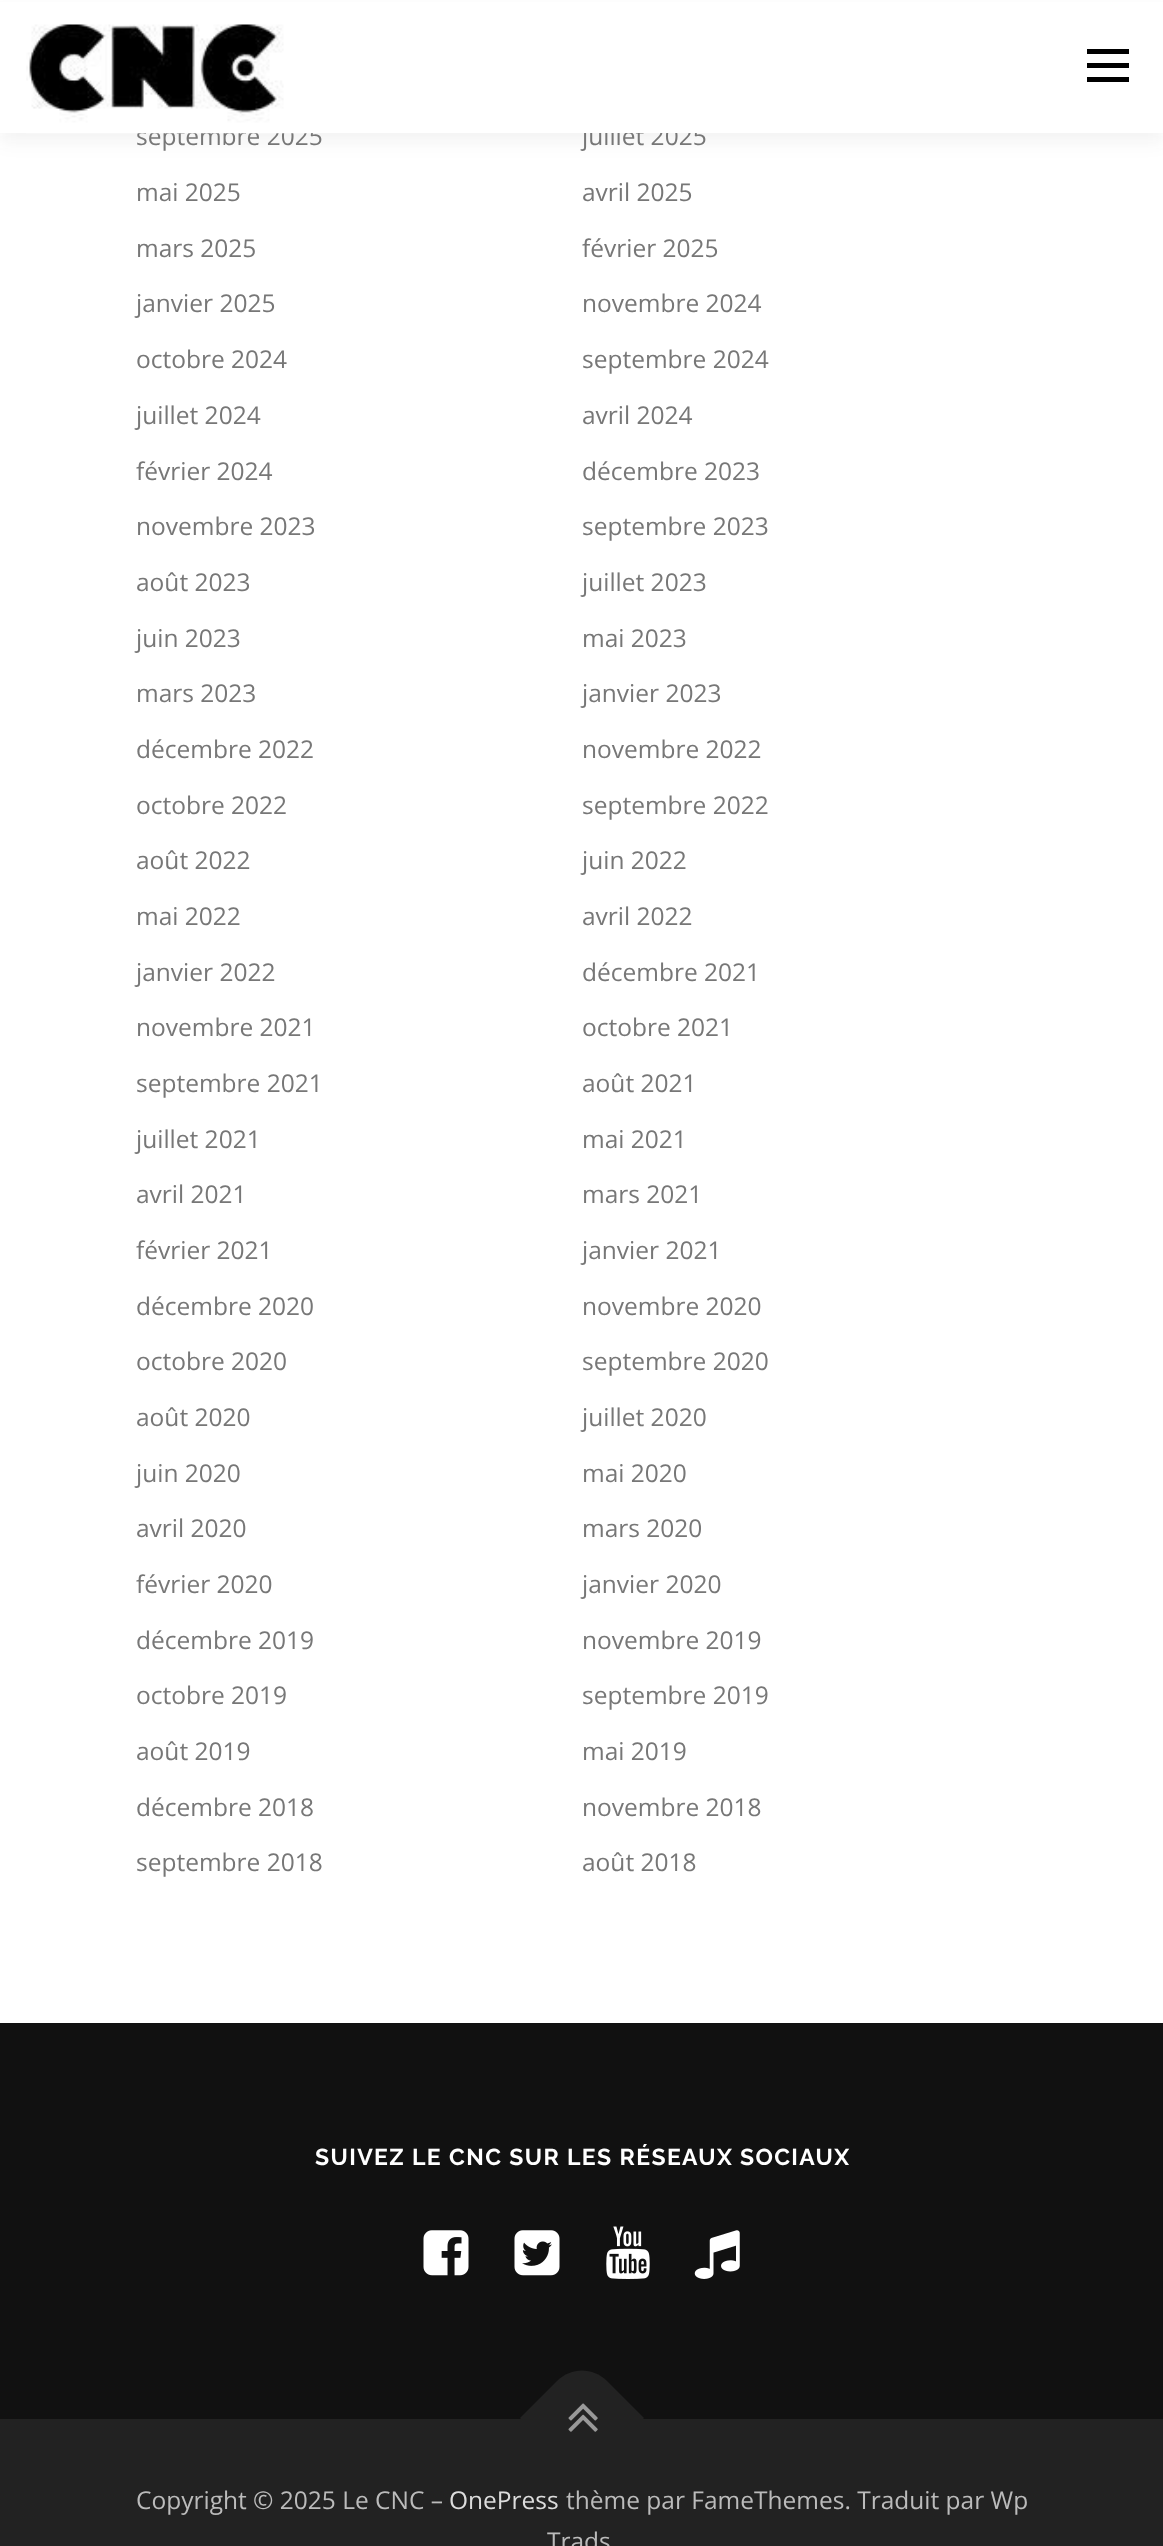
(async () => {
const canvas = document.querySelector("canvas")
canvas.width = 1163
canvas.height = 2546
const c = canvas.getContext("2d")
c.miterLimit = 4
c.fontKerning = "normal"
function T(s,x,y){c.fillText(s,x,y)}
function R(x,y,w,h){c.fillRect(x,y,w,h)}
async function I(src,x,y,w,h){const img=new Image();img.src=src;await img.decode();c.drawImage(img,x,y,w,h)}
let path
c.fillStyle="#fff"
R(0,0,1163,2546)
c.fillStyle="#3232320f"
c.filter="blur(9px)"
c.beginPath()
c.rect(0,9,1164,133)
c.fill()
c.filter="none"
c.font="24.5px Open Sans"
c.fillStyle="#777"
T("septembre 2025",136,145)
T("juillet 2025",582,145)
c.fillStyle="#fff"
R(0,2,1163,131)
await I("1.png",26,24,286,110)
c.fillStyle="#000"
R(1087,63,42,5)
R(1087,49,42,5)
R(1087,77,42,5)
c.fillStyle="#777"
T("mai 2025",136,201)
T("avril 2025",582,201)
T("mars 2025",136,257)
T("février 2025",582,257)
T("janvier 2025",136,312)
T("novembre 2024",582,312)
T("octobre 2024",136,368)
T("septembre 2024",582,368)
T("juillet 2024",136,424)
T("avril 2024",582,424)
T("février 2024",136,480)
T("décembre 2023",582,480)
T("novembre 2023",136,535)
T("septembre 2023",582,535)
T("août 2023",136,591)
T("juillet 2023",582,591)
T("juin 2023",136,647)
T("mai 2023",582,647)
T("mars 2023",136,702)
T("janvier 2023",582,702)
T("décembre 2022",136,758)
T("novembre 2022",582,758)
T("octobre 2022",136,814)
T("septembre 2022",582,814)
T("août 2022",136,869)
T("juin 2022",582,869)
T("mai 2022",136,925)
T("avril 2022",582,925)
T("janvier 2022",136,981)
T("décembre 2021",582,981)
T("novembre 2021",136,1036)
T("octobre 2021",582,1036)
T("septembre 2021",136,1092)
T("août 2021",582,1092)
T("juillet 2021",136,1148)
T("mai 2021",582,1148)
T("avril 2021",136,1203)
T("mars 2021",582,1203)
T("février 2021",136,1259)
T("janvier 2021",582,1259)
T("décembre 2020",136,1315)
T("novembre 2020",582,1315)
T("octobre 2020",136,1370)
T("septembre 2020",582,1370)
T("août 2020",136,1426)
T("juillet 2020",582,1426)
T("juin 2020",136,1482)
T("mai 2020",582,1482)
T("avril 2020",136,1537)
T("mars 2020",582,1537)
T("février 2020",136,1593)
T("janvier 2020",582,1593)
T("décembre 2019",136,1649)
T("novembre 2019",582,1649)
T("octobre 2019",136,1704)
T("septembre 2019",582,1704)
T("août 2019",136,1760)
T("mai 2019",582,1760)
T("décembre 2018",136,1816)
T("novembre 2018",582,1816)
T("septembre 2018",136,1871)
T("août 2018",582,1871)
c.fillStyle="#111"
R(0,2023,1163,396)
c.letterSpacing="1.4px"
c.font="bold 23px Raleway"
c.fillStyle="#fff"
T("SUIVEZ LE CNC SUR LES RÉSEAUX SOCIAUX",315,2165)
await I("2.png",423,2230,46,46)
await I("3.png",514,2230,46,46)
await I("4.png",606,2226,44,53)
await I("5.png",694,2230,46,49)
c.fillStyle="#222"
R(0,2419,1163,127)
path = new Path2D("M520 2418l37-37c14-14 36-14 50 0l37 37l-62 62z")
c.fill(path)
await I("6.png",568,2403,30,29)
c.letterSpacing="0px"
c.font="24.5px Open Sans"
c.fillStyle="#bbb"
T("Copyright © 2025 Le CNC –",136,2509)
c.fillStyle="#ddd"
T("OnePress",449,2509)
c.fillStyle="#bbb"
T("thème par FameThemes. Traduit par Wp",566,2509)
T("Trads",547,2550)
})()
